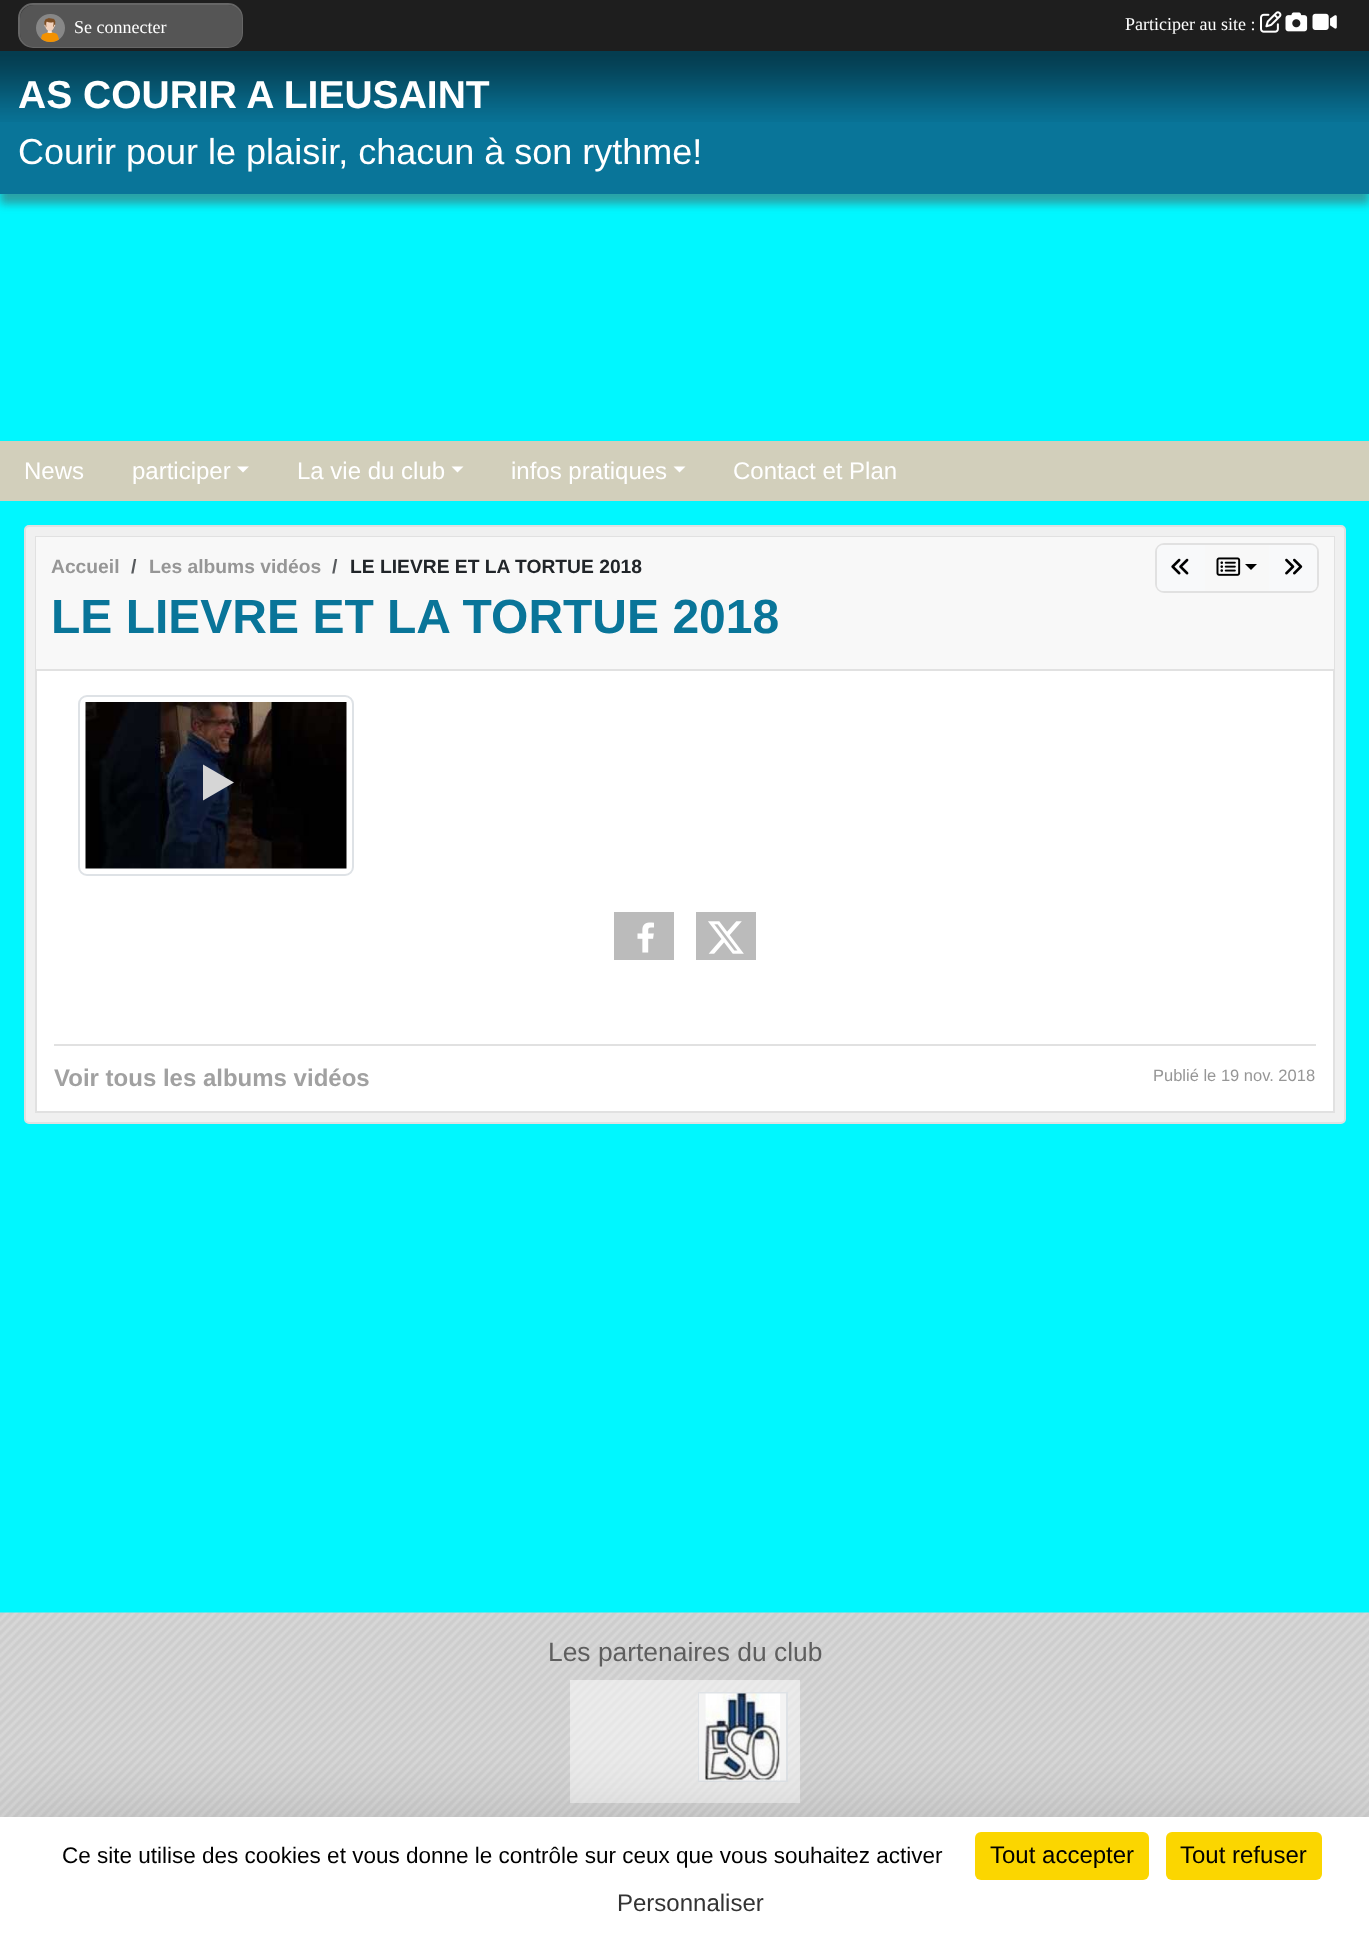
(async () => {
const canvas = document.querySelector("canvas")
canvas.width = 1369
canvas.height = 1942
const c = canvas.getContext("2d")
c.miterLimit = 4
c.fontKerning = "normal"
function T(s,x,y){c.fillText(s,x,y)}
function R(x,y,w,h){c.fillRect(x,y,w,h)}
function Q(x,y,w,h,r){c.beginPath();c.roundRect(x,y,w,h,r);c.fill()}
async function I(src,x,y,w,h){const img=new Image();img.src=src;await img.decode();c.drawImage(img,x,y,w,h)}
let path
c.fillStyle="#00f7ff"
R(0,0,1369,1942)
c.fillStyle="#50505080"
c.filter="blur(4px)"
c.beginPath()
c.rect(0,62,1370,142)
c.fill()
c.filter="none"
c.fillStyle="#1e1e1e"
R(0,0,1369,51)
c.fillStyle="#333"
c.beginPath()
c.roundRect(19,4,223,43,14)
c.fill()
c.strokeStyle="#666"
c.lineWidth=2
c.stroke()
c.fillStyle="#555"
Q(20,5,222,42,14)
await I("1.png",36,14,29,28)
c.font="18px Liberation Serif"
c.fillStyle="#fff"
T("Se connecter",74,33)
T("Participer au site :",1125,30)
await I("2.png",1260,11,22,22)
await I("3.png",1285,12,23,20)
await I("4.png",1312,13,25,17)
c.fillStyle="#097599"
R(0,51,1369,143)
await I("5.png",0,51,1369,71)
c.font="bold 39px Liberation Sans"
c.fillStyle="#fff"
T("AS COURIR A LIEUSAINT",18,108)
c.font="36px Liberation Sans"
T("Courir pour le plaisir, chacun à son rythme!",18,164)
c.fillStyle="#d2cfbb"
R(0,441,1369,60)
c.font="24px Liberation Sans"
c.fillStyle="#fff"
T("News",24,479)
T("participer",132,479)
path = new Path2D("M237 466.5h12l-6 6z")
c.fill(path)
T("La vie du club",297,479)
path = new Path2D("M451.5 466.5h12l-6 6z")
c.fill(path)
T("infos pratiques",511,479)
path = new Path2D("M673.5 466.5h12l-6 6z")
c.fill(path)
T("Contact et Plan",733,479)
c.fillStyle="#f0f0f0"
c.beginPath()
c.roundRect(25,526,1320,597,4)
c.fill()
c.strokeStyle="#e1e1e1"
c.stroke()
c.fillStyle="#fff"
R(37,671,1296,440)
c.strokeRect(36,537,1298,575)
c.fillStyle="#f8f8f8"
R(36,537,1298,132)
c.fillStyle="#e1e1e1"
R(36,669,1298,2)
c.font="bold 19.25px Liberation Sans"
c.fillStyle="#969696"
T("Accueil",51,573)
c.fillStyle="#575a5d"
T("/",131,573)
c.fillStyle="#969696"
T("Les albums vidéos",149,573)
c.fillStyle="#575a5d"
T("/",332,573)
c.fillStyle="#212529"
T("LE LIEVRE ET LA TORTUE 2018",350,573)
c.beginPath()
c.roundRect(1156,544,162,48,8)
c.stroke()
c.fillStyle="#f8f9fa"
c.beginPath()
c.roundRect(1158,546,46,44,[5,0,0,5])
c.fill()
c.strokeStyle="#f8f9fa"
c.stroke()
await I("6.png",1171,558,18,17)
await I("7.png",1216,557,25,19)
c.fillStyle="#000"
path = new Path2D("M1245 564h12l-6 6z")
c.fill(path)
c.fillStyle="#f8f9fa"
c.beginPath()
c.roundRect(1270,546,46,44,[0,5,5,0])
c.fill()
c.stroke()
await I("8.png",1285,558,18,17)
c.font="bold 48px Liberation Sans"
c.fillStyle="#097599"
T("LE LIEVRE ET LA TORTUE 2018",51,633)
c.beginPath()
c.roundRect(79,696,274,179,8)
c.strokeStyle="#dee2e6"
c.stroke()
await I("9.png",85,702,262,167)
c.fillStyle="#d6d6d6"
path = new Path2D("M234 782.5l-31-18v36z")
c.fill(path)
c.fillStyle="#bbb"
R(614,912,60,48)
await I("10.png",637,922,17,31)
R(696,912,60,48)
await I("11.png",708,921,36,33)
c.fillStyle="#e1e1e1"
R(54,1044,1262,2)
c.font="bold 24px Liberation Sans"
c.fillStyle="#a1a1a1"
T("Voir tous les albums vidéos",54,1086)
c.font="16.5px Liberation Sans"
c.fillStyle="#969696"
T("Publié le 19 nov. 2018",1153,1081)
await I("12.png",0,1612,1369,205)
c.font="26.4px Liberation Sans"
c.fillStyle="#5e5e5e"
T("Les partenaires du club",548,1661)
c.fillStyle="#ffffff80"
R(570,1680,116,123)
R(686,1680,114,123)
c.strokeRect(699,1693,88,88)
await I("13.png",699,1693,87,88)
c.fillStyle="#00000040"
c.filter="blur(45px)"
c.beginPath()
c.rect(0,1847,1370,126)
c.fill()
c.filter="none"
c.fillStyle="#fff"
R(0,1817,1369,125)
c.font="22.5px Liberation Sans"
c.fillStyle="#000"
T("Ce site utilise des cookies et vous donne le contrôle sur ceux que vous souhaitez activer",62,1863)
c.fillStyle="#fbd600"
Q(975,1832,174,48,6)
c.font="24px Liberation Sans"
c.fillStyle="#000"
T("Tout accepter",990,1863)
c.fillStyle="#fbd600"
Q(1166,1832,156,48,6)
c.fillStyle="#000"
T("Tout refuser",1180,1863)
c.fillStyle="#333"
T("Personnaliser",617,1911)
})()
